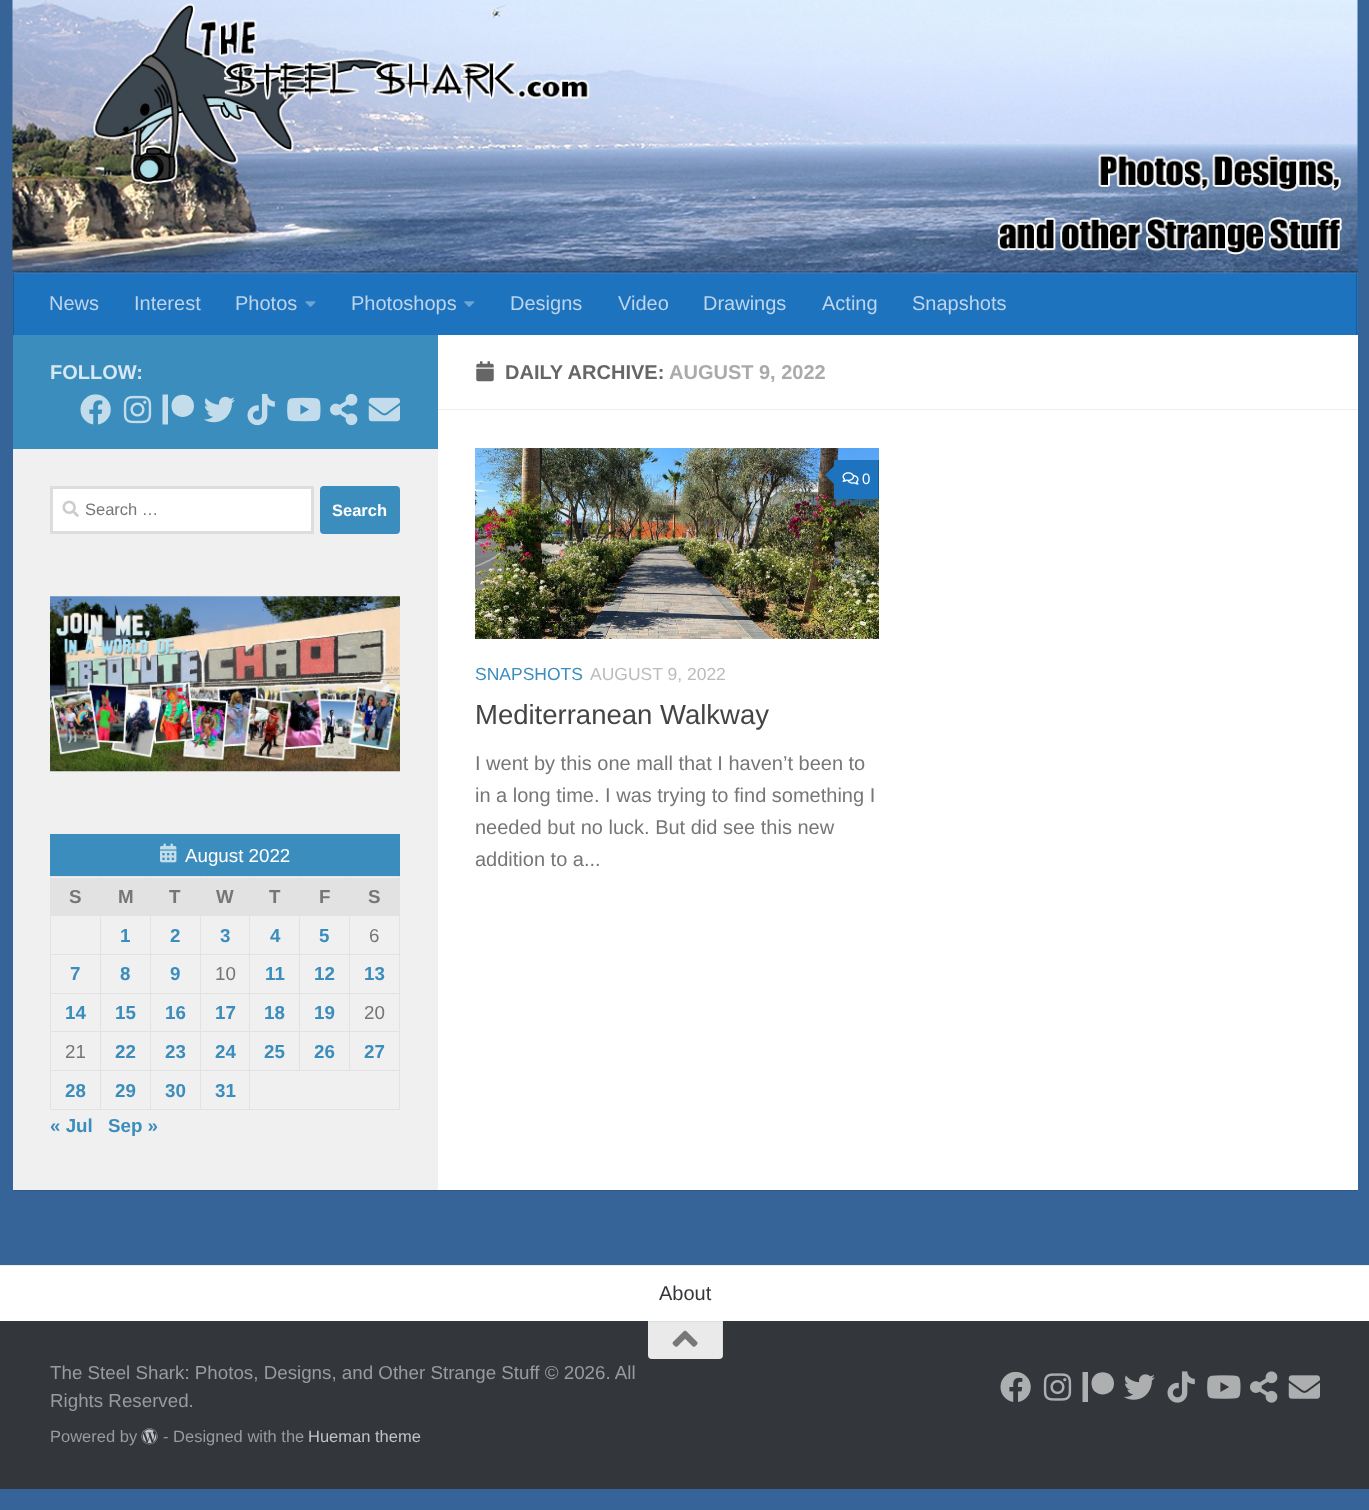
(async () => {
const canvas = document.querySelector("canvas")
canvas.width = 1369
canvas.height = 1510
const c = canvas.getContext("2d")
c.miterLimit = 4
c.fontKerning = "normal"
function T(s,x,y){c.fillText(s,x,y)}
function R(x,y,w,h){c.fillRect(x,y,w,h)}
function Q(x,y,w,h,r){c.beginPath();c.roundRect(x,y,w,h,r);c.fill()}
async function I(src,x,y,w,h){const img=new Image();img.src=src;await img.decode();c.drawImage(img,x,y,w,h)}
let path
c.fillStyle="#366498"
R(0,0,1369,1510)
c.fillStyle="#0000001a"
c.filter="blur(0.5px)"
c.beginPath()
c.rect(13,336,1345,855)
c.fill()
c.filter="none"
c.fillStyle="#366498"
R(13,336,1345,74)
await I("1.png",12,0,1346,273)
c.fillStyle="#00000033"
path = new Path2D("M13 271v1h1345v62v-63z")
c.fill(path)
c.fillStyle="#1e73be"
R(14,274,1344,61)
c.fillStyle="#297ac1"
R(13,273,1345,1)
c.fillStyle="#185c98"
R(1356,273,1,62)
c.fillStyle="#24649d"
R(1356,273,1,1)
c.fillStyle="#185c98"
R(13,273,1,62)
c.fillStyle="#24649d"
R(13,273,1,1)
c.font="20px Liberation Sans"
c.fillStyle="#bcd5ec"
T("News",49,310)
T("Interest",134,310)
T("Photos",235,310)
await I("2.png",305,301,11,6)
T("Photoshops",351,310)
await I("3.png",464,301,11,6)
T("Designs",510,310)
T("Video",618,310)
T("Drawings",703,310)
T("Acting",822,310)
T("Snapshots",912,310)
c.fillStyle="#fff"
R(438,335,920,855)
c.fillStyle="#3b8dbd"
R(13,335,425,114)
c.font="bold 20px Liberation Sans"
c.fillStyle="#d8e8f2"
T("FOLLOW:",50,379)
await I("4.png",80,394,31,31)
await I("5.png",123,395,29,29)
c.fillStyle="#c4ddeb"
path = new Path2D("M194 406c0 14.5-22.5 14.5-22.5 0c0-15 22.5-15 22.5 0zm-31.5 18.5v-30h5.5v30z")
c.fill(path)
await I("6.png",204,396,31,27)
await I("7.png",247,393,28,33)
await I("8.png",287,397,34,25)
await I("9.png",330,393,28,33)
await I("10.png",368,397,32,25)
c.fillStyle="#f0f0f0"
R(13,449,425,741)
c.fillStyle="#fff"
c.beginPath()
c.rect(51.5,487.5,261,45)
c.fill()
c.strokeStyle="#ddd"
c.lineWidth=3
c.stroke()
await I("11.png",62,500,17,17)
c.font="16.5px Liberation Sans"
c.fillStyle="#767676"
T("Search …",85,515)
c.fillStyle="#3b8dbd"
Q(320,486,80,48,4)
c.font="bold 16.5px Liberation Sans"
c.fillStyle="#fff"
T("Search",332,516)
await I("12.png",50,596,350,176)
c.fillStyle="#3b8dbd"
R(50,834,350,42)
await I("13.png",160,843,17,20)
c.font="18.75px Liberation Sans"
c.fillStyle="#fff"
T("August 2022",185,862)
c.fillStyle="#e2e2e2"
R(51,878,348,37)
R(349,876,51,1)
R(349,876,1,2)
R(299,876,51,1)
R(299,876,1,2)
R(249,876,51,1)
R(249,876,1,2)
R(200,876,50,1)
R(200,876,1,2)
R(150,876,51,1)
R(150,876,1,2)
R(100,876,51,1)
R(100,876,1,2)
R(50,876,51,1)
R(349,915,51,1)
R(349,954,51,1)
R(349,993,51,1)
R(349,1031,51,1)
R(249,1070,151,1)
R(349,1031,1,40)
R(299,1031,51,1)
R(349,993,1,40)
R(299,993,51,1)
R(349,954,1,40)
R(299,954,51,1)
R(349,915,1,40)
R(299,915,51,1)
R(299,1031,1,40)
R(249,1031,51,1)
R(299,993,1,40)
R(249,993,51,1)
R(299,954,1,40)
R(249,954,51,1)
R(299,915,1,40)
R(249,915,51,1)
R(399,1070,1,40)
R(249,1109,151,1)
R(249,1070,1,40)
R(200,1070,50,1)
R(249,1031,1,40)
R(200,1031,50,1)
R(249,993,1,40)
R(200,993,50,1)
R(249,954,1,40)
R(200,954,50,1)
R(249,915,1,40)
R(200,915,50,1)
R(200,1109,50,1)
R(200,1070,1,40)
R(150,1070,51,1)
R(200,1031,1,40)
R(150,1031,51,1)
R(200,993,1,40)
R(150,993,51,1)
R(200,954,1,40)
R(150,954,51,1)
R(200,915,1,40)
R(150,915,51,1)
R(150,1109,51,1)
R(150,1070,1,40)
R(100,1070,51,1)
R(150,1031,1,40)
R(100,1031,51,1)
R(150,993,1,40)
R(100,993,51,1)
R(150,954,1,40)
R(100,954,51,1)
R(150,915,1,40)
R(100,915,51,1)
R(100,1109,51,1)
R(100,1070,1,40)
R(50,1070,51,1)
R(100,1031,1,40)
R(50,1031,51,1)
R(100,993,1,40)
R(50,993,51,1)
R(100,954,1,40)
R(50,954,51,1)
R(100,915,1,40)
R(50,915,51,1)
R(50,1109,51,1)
R(50,1070,1,40)
R(50,1031,1,40)
R(50,993,1,40)
R(50,954,1,40)
R(50,915,1,40)
R(50,876,1,40)
c.font="bold 18.75px Liberation Sans"
c.fillStyle="#767676"
T("S",69,903)
T("M",118,903)
T("T",169,903)
T("W",216,903)
T("T",269,903)
T("F",319,903)
c.fillStyle="#e2e2e2"
R(399,1031,1,40)
R(399,993,1,40)
R(399,954,1,40)
R(399,915,1,40)
R(399,876,1,40)
c.fillStyle="#767676"
T("S",368,903)
c.fillStyle="#3b8dbd"
T("1",120,942)
T("2",170,942)
T("3",220,942)
T("4",270,942)
T("5",319,942)
c.font="18.75px Liberation Sans"
c.fillStyle="#767676"
T("6",369,942)
c.font="bold 18.75px Liberation Sans"
c.fillStyle="#3b8dbd"
T("7",70,980)
T("8",120,980)
T("9",170,980)
c.font="18.75px Liberation Sans"
c.fillStyle="#767676"
T("10",215,980)
c.font="bold 18.75px Liberation Sans"
c.fillStyle="#3b8dbd"
T("11",265,980)
T("12",314,980)
T("13",364,980)
T("14",65,1019)
T("15",115,1019)
T("16",165,1019)
T("17",215,1019)
T("18",264,1019)
T("19",314,1019)
c.font="18.75px Liberation Sans"
c.fillStyle="#767676"
T("20",364,1019)
T("21",65,1058)
c.font="bold 18.75px Liberation Sans"
c.fillStyle="#3b8dbd"
T("22",115,1058)
T("23",165,1058)
T("24",215,1058)
T("25",264,1058)
T("26",314,1058)
T("27",364,1058)
T("28",65,1097)
T("29",115,1097)
T("30",165,1097)
T("31",215,1097)
T("« Jul",50,1132)
T("Sep »",108,1132)
c.fillStyle="#eee"
R(438,409,920,1)
await I("14.png",476,361,18,21)
c.font="bold 20px Liberation Sans"
c.fillStyle="#666"
T("DAILY ARCHIVE:",505,379)
c.fillStyle="#aaa"
T("AUGUST 9, 2022",669,379)
await I("15.png",475,448,404,191)
c.fillStyle="#1e73be"
R(834,460,44,39)
c.fillStyle="#185c98"
R(878,460,1,39)
c.fillStyle="#1e73be"
path = new Path2D("M836 464v22l-11-11z")
c.fill(path)
await I("16.png",842,472,17,13)
c.font="15px Liberation Sans"
c.fillStyle="#fff"
T("0",862,484)
c.font="17.5px Liberation Sans"
c.fillStyle="#3b8dbd"
T("SNAPSHOTS",475,680)
c.fillStyle="#bbb"
T("AUGUST 9, 2022",590,680)
c.font="27.5px Liberation Sans"
c.fillStyle="#444"
T("Mediterranean Walkway",475,724)
c.font="20px Liberation Sans"
c.fillStyle="#767676"
T("I went by this one mall that I haven’t been to",475,770)
T("in a long time. I was trying to find something I",475,802)
T("needed but no luck. But did see this new",475,834)
T("addition to a...",475,866)
c.fillStyle="#fff"
R(0,1266,1369,55)
c.fillStyle="#eee"
R(0,1265,1369,1)
c.fillStyle="#33363b"
T("About",659,1300)
R(0,1321,1369,168)
c.fillStyle="#eaeaea"
c.beginPath()
c.roundRect(648,1321,75,38,[0,0,4,4])
c.fill()
c.fillStyle="#0000000d"
path = new Path2D("M648 1322h74v36c0-1 1-2 1-3v-34h-75z")
c.fill(path)
await I("17.png",672,1330,26,17)
c.font="18.75px Liberation Sans"
c.fillStyle="#999b9d"
T("The Steel Shark: Photos, Designs, and Other Strange Stuff © 2026. All",50,1379)
T("Rights Reserved.",50,1407)
c.font="16.5px Liberation Sans"
T("Powered by",50,1442)
await I("18.png",141,1428,17,17)
T("- Designed with the",163,1442)
c.fillStyle="#c2c3c4"
T("Hueman theme",308,1442)
await I("19.png",1000,1371,31,31)
await I("20.png",1043,1373,29,28)
c.fillStyle="#adafb1"
path = new Path2D("M1114 1383.5c0 14.5-22.5 14.5-22.5 0c0-15 22.5-15 22.5 0zm-31.5 18.5v-30h5.5v30z")
c.fill(path)
await I("21.png",1124,1374,31,26)
await I("22.png",1167,1371,28,32)
await I("23.png",1207,1375,34,24)
await I("24.png",1250,1371,28,32)
await I("25.png",1288,1375,32,24)
})()
